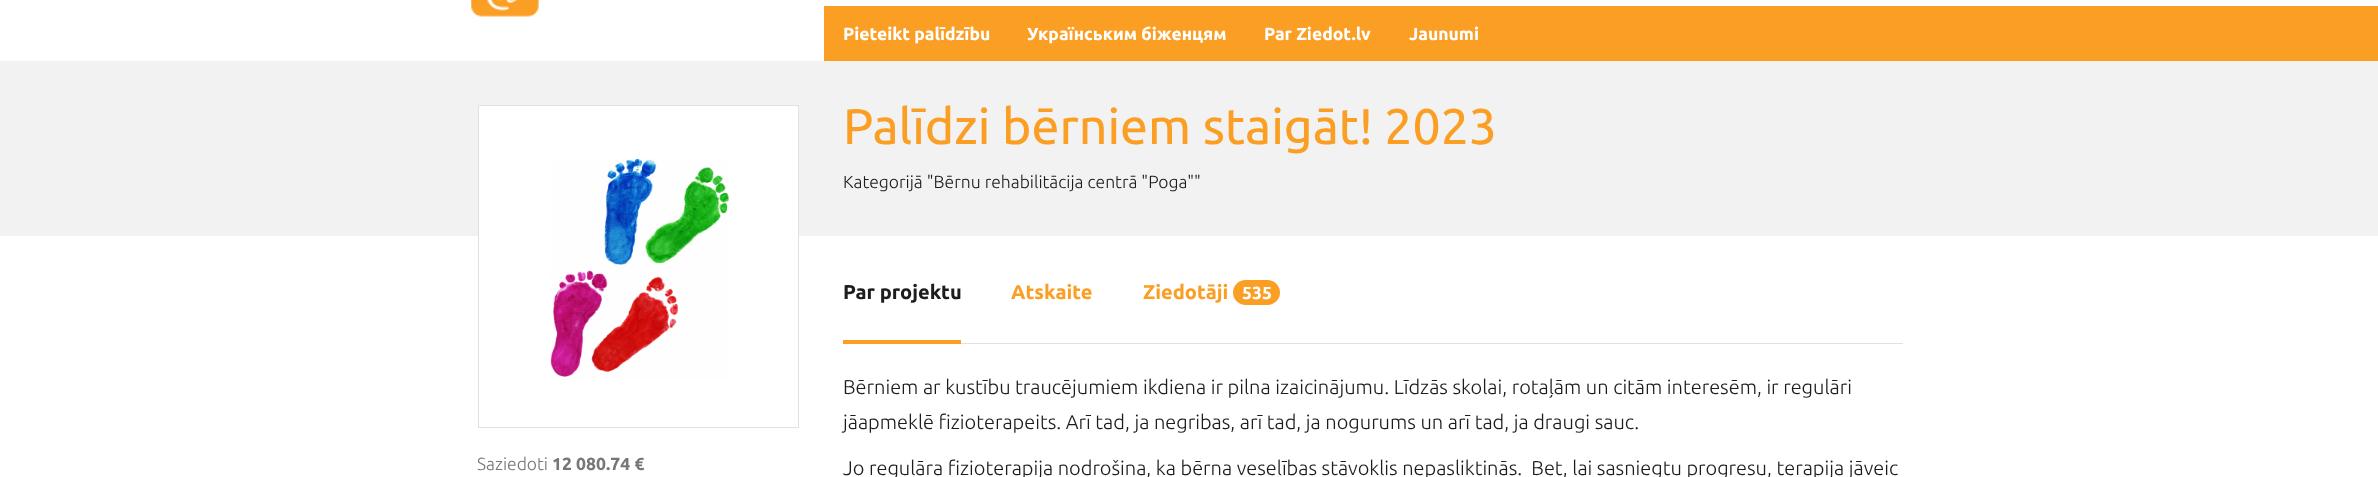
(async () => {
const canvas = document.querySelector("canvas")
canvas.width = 2378
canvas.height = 477
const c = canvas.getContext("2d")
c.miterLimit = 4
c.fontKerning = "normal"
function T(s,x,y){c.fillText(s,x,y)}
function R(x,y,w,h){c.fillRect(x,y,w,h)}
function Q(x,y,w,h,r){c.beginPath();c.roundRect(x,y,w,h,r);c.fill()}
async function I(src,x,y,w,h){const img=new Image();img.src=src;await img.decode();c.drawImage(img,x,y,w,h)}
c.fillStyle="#fff"
R(0,0,2378,477)
await I("1.png",471,0,68,17)
c.fillStyle="#fb9e24"
R(824,6,1554,55)
c.font="bold 17.5px Ubuntu"
c.fillStyle="#fff"
T("Pieteikt palīdzību",843,40)
T("Українським біженцям",1027,40)
T("Par Ziedot.lv",1264,40)
T("Jaunumi",1409,40)
c.fillStyle="#f2f2f2"
R(0,61,2378,175)
c.font="50px Ubuntu"
c.fillStyle="#fb9e24"
T("Palīdzi bērniem staigāt! 2023",843,144)
c.font="300 17.5px Ubuntu"
c.fillStyle="#1d1d1d"
T("Kategorijā \"Bērnu rehabilitācija centrā \"Poga\"\"",843,188)
c.fillStyle="#fff"
R(479,106,319,130)
c.strokeStyle="#e1e1e1"
c.strokeRect(478.5,105.5,320,322)
await I("2.png",550,158,180,222)
c.fillStyle="#777"
T("Saziedoti",477,470)
c.font="bold 17.5px Ubuntu"
T("12 080.74 €",552,470)
c.fillStyle="#e1e1e1"
R(961,343,942,1)
c.fillStyle="#fb9e24"
R(843,340,118,4)
c.font="bold 20px Ubuntu"
c.fillStyle="#1d1d1d"
T("Par projektu",843,299)
c.fillStyle="#fb9e24"
T("Atskaite",1011,299)
T("Ziedotāji",1143,299)
Q(1233,280,47,25,12.5)
c.font="bold 17.5px Ubuntu"
c.fillStyle="#fff"
T("535",1242,299)
c.font="300 20px Ubuntu"
c.fillStyle="#1d1d1d"
T("Bērniem ar kustību traucējumiem ikdiena ir pilna izaicinājumu. Līdzās skolai, rotaļām un citām interesēm, ir regulāri",843,394)
T("jāapmeklē fizioterapeits. Arī tad, ja negribas, arī tad, ja nogurums un arī tad, ja draugi sauc.",843,429)
T("Jo regulāra fizioterapija nodrošina, ka bērna veselības stāvoklis nepasliktinās.  Bet, lai sasniegtu progresu, terapija jāveic",843,475)
})()
